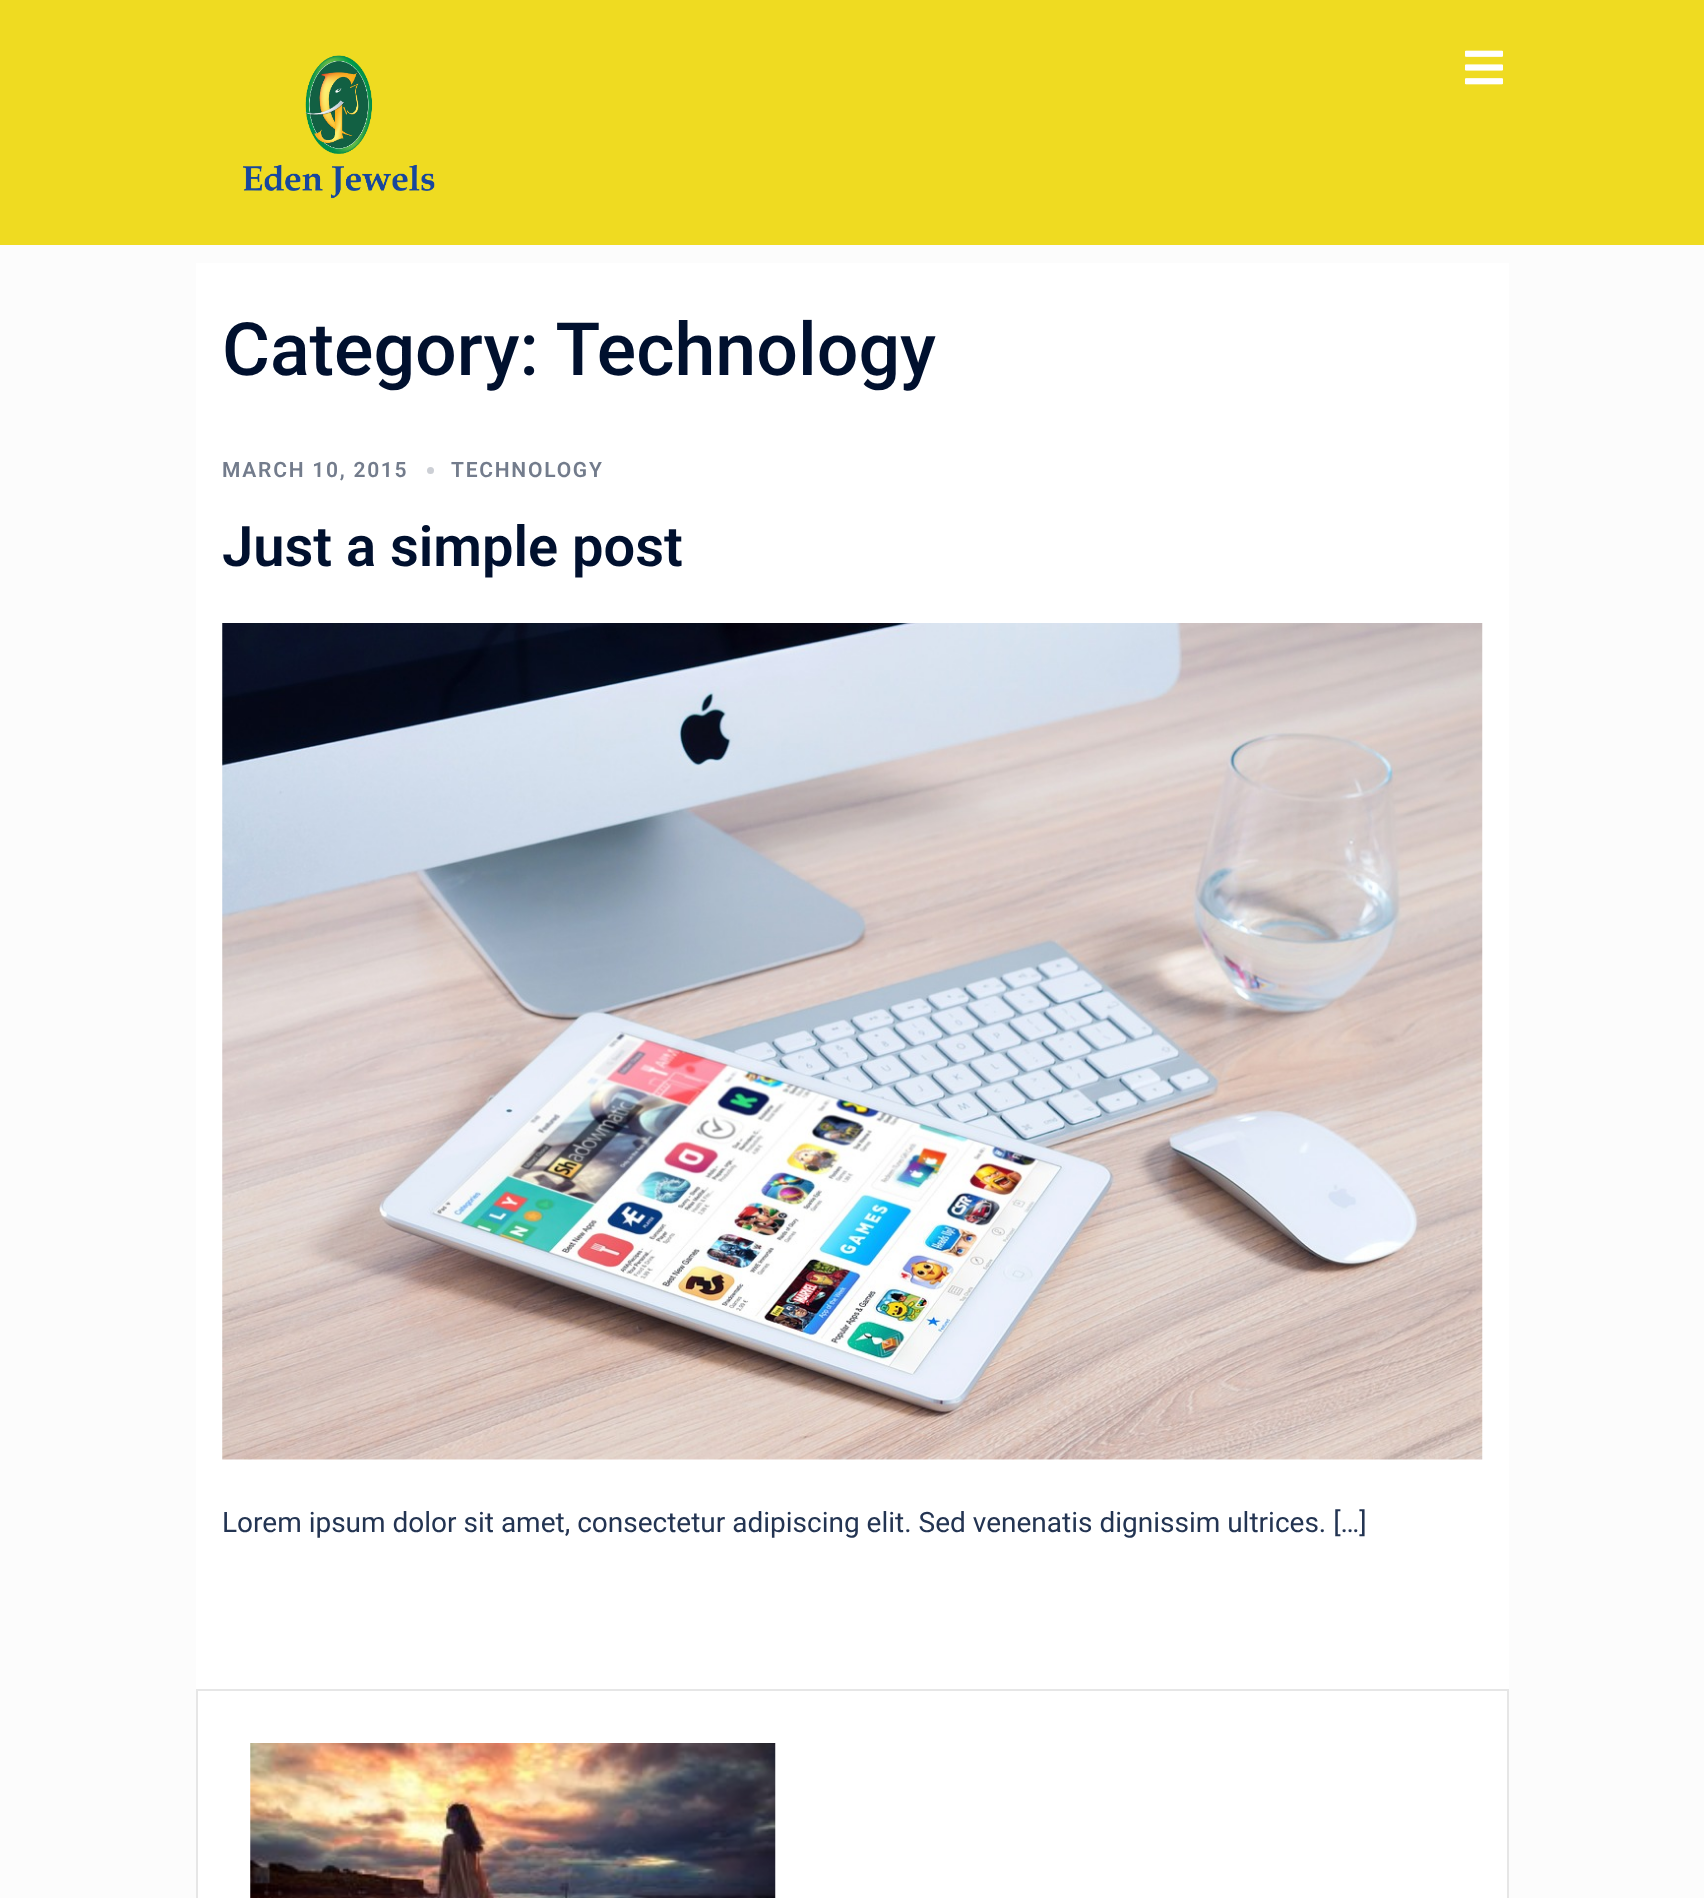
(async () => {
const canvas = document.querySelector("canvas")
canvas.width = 1704
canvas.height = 1898
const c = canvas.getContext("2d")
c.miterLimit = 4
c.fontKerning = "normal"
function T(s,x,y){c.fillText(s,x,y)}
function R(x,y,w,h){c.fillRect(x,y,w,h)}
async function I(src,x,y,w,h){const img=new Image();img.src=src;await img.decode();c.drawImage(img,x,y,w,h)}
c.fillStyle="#fcfcfc"
R(0,0,1704,1898)
c.fillStyle="#efdb21"
R(0,0,1704,245)
await I("1.png",243,55,192,144)
await I("2.png",1465,50,38,35)
c.fillStyle="#fff"
R(196,263,1313,1635)
c.font="500 73.5px Roboto"
c.fillStyle="#00102e"
T("Category: Technology",222,375)
c.letterSpacing="1.75px"
c.font="600 21px Roboto"
c.fillStyle="#737c8c"
T("MARCH 10, 2015",222,477)
c.fillStyle="#cccfd5"
c.beginPath()
c.arc(430.5,470.5,3.5,0,7)
c.fill()
c.fillStyle="#737c8c"
T("TECHNOLOGY",451,477)
c.letterSpacing="0px"
c.font="600 56px Roboto"
c.fillStyle="#00102e"
T("Just a simple post",222,566)
await I("3.png",222,623,1261,837)
c.font="28px Roboto"
c.fillStyle="#233452"
T("Lorem ipsum dolor sit amet, consectetur adipiscing elit. Sed venenatis dignissim ultrices. […]",222,1532)
c.strokeStyle="#e6e6e6"
c.lineWidth=2
c.strokeRect(197,1690,1311,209)
await I("4.png",250,1743,526,155)
})()
